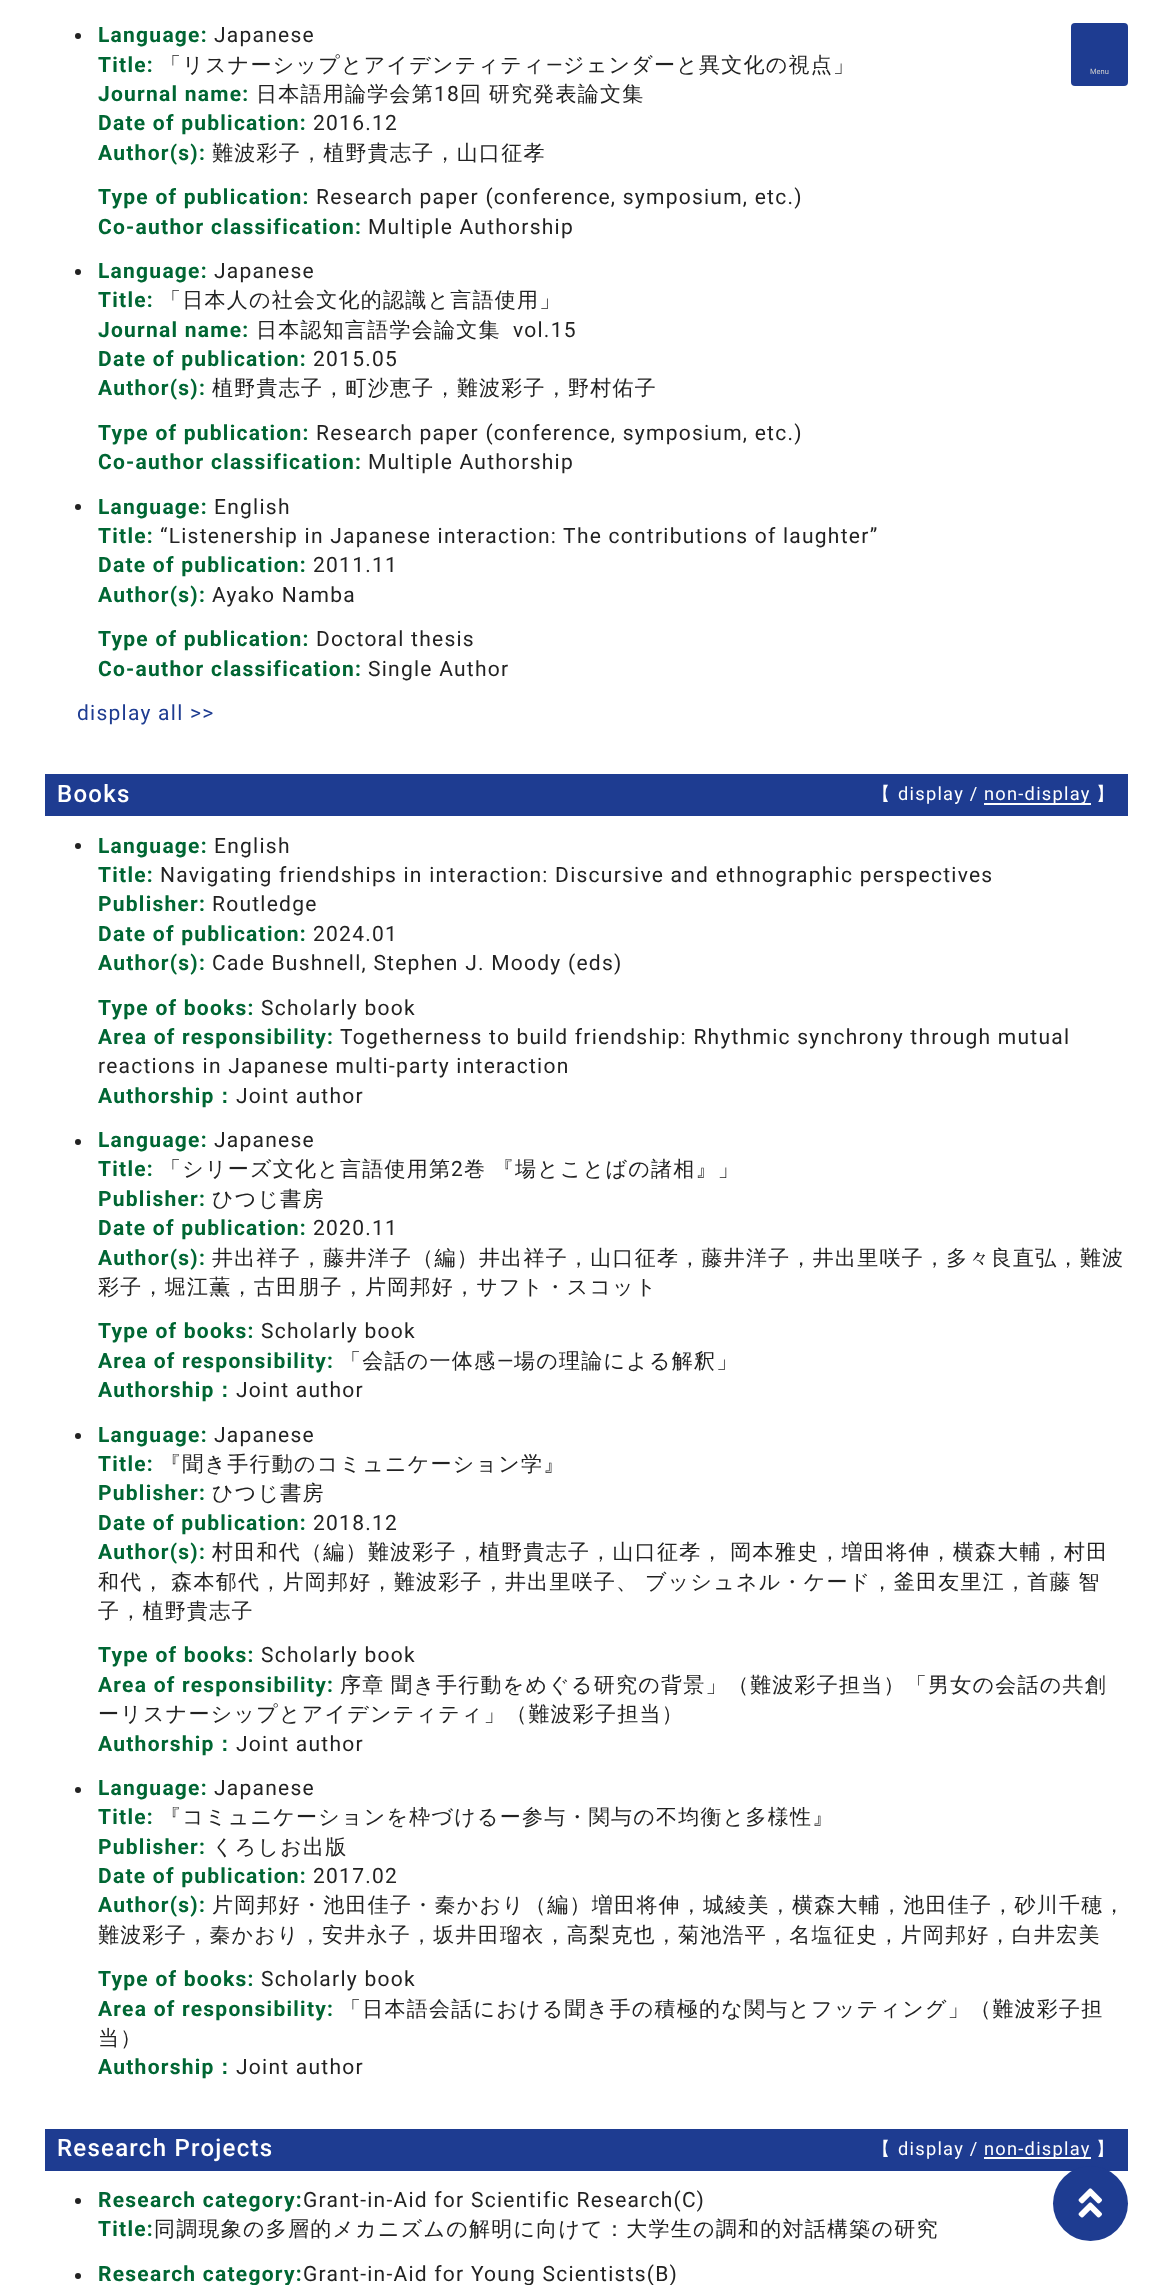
(async () => {
const canvas = document.querySelector("canvas")
canvas.width = 1172
canvas.height = 2285
const c = canvas.getContext("2d")
c.miterLimit = 4
c.fontKerning = "normal"
function T(s,x,y){c.fillText(s,x,y)}
function R(x,y,w,h){c.fillRect(x,y,w,h)}
function Q(x,y,w,h,r){c.beginPath();c.roundRect(x,y,w,h,r);c.fill()}
async function I(src,x,y,w,h){const img=new Image();img.src=src;await img.decode();c.drawImage(img,x,y,w,h)}
c.fillStyle="#fff"
R(0,0,1172,2285)
c.fillStyle="#222"
c.beginPath()
c.arc(78,36,3,0,7)
c.fill()
c.letterSpacing="1.25px"
c.font="bold 21px Roboto"
c.fillStyle="#063"
T("Language:",98,42)
c.font="21px Roboto"
c.fillStyle="#222"
T("Japanese",214,42)
c.font="bold 21px Roboto"
c.fillStyle="#063"
T("Title:",98,72)
c.font="500 21px WenQuanYi Zen Hei"
c.fillStyle="#222"
T("「リスナーシップとアイデンティティ",160,72)
c.font="21px Roboto"
T("―",546,72)
c.font="500 21px WenQuanYi Zen Hei"
T("ジェンダーと異文化の視点」",563,72)
c.font="bold 21px Roboto"
c.fillStyle="#063"
T("Journal name:",98,101)
c.font="500 21px WenQuanYi Zen Hei"
c.fillStyle="#222"
T("日本語用論学会第",256,101)
c.font="21px Roboto"
T("18",434,101)
c.wordSpacing="-1px"
c.font="500 21px WenQuanYi Zen Hei"
T("回 研究発表論文集",460,101)
c.wordSpacing="0px"
c.font="bold 21px Roboto"
c.fillStyle="#063"
T("Date of publication:",98,130)
c.font="21px Roboto"
c.fillStyle="#222"
T("2016.12",313,130)
c.font="bold 21px Roboto"
c.fillStyle="#063"
T("Author(s):",98,160)
c.font="500 21px WenQuanYi Zen Hei"
c.fillStyle="#222"
T("難波彩子，植野貴志子，山口征孝",212,160)
c.font="bold 21px Roboto"
c.fillStyle="#063"
T("Type of publication:",98,204)
c.font="21px Roboto"
c.fillStyle="#222"
T("Research paper (conference, symposium, etc.)",316,204)
c.font="bold 21px Roboto"
c.fillStyle="#063"
T("Co-author classification:",98,234)
c.font="21px Roboto"
c.fillStyle="#222"
T("Multiple Authorship",368,234)
c.beginPath()
c.arc(78,272,3,0,7)
c.fill()
c.font="bold 21px Roboto"
c.fillStyle="#063"
T("Language:",98,278)
c.font="21px Roboto"
c.fillStyle="#222"
T("Japanese",214,278)
c.font="bold 21px Roboto"
c.fillStyle="#063"
T("Title:",98,307)
c.font="500 21px WenQuanYi Zen Hei"
c.fillStyle="#222"
T("「日本人の社会文化的認識と言語使用」",160,307)
c.font="bold 21px Roboto"
c.fillStyle="#063"
T("Journal name:",98,337)
c.font="500 21px WenQuanYi Zen Hei"
c.fillStyle="#222"
T("日本認知言語学会論文集",256,337)
c.font="21px Roboto"
T("vol.15",513,337)
c.font="bold 21px Roboto"
c.fillStyle="#063"
T("Date of publication:",98,366)
c.font="21px Roboto"
c.fillStyle="#222"
T("2015.05",313,366)
c.font="bold 21px Roboto"
c.fillStyle="#063"
T("Author(s):",98,395)
c.font="500 21px WenQuanYi Zen Hei"
c.fillStyle="#222"
T("植野貴志子，町沙恵子，難波彩子，野村佑子",212,395)
c.font="bold 21px Roboto"
c.fillStyle="#063"
T("Type of publication:",98,440)
c.font="21px Roboto"
c.fillStyle="#222"
T("Research paper (conference, symposium, etc.)",316,440)
c.font="bold 21px Roboto"
c.fillStyle="#063"
T("Co-author classification:",98,469)
c.font="21px Roboto"
c.fillStyle="#222"
T("Multiple Authorship",368,469)
c.beginPath()
c.arc(78,507,3,0,7)
c.fill()
c.font="bold 21px Roboto"
c.fillStyle="#063"
T("Language:",98,514)
c.font="21px Roboto"
c.fillStyle="#222"
T("English",214,514)
c.font="bold 21px Roboto"
c.fillStyle="#063"
T("Title:",98,543)
c.font="21px Roboto"
c.fillStyle="#222"
T("“Listenership in Japanese interaction: The contributions of laughter”",160,543)
c.font="bold 21px Roboto"
c.fillStyle="#063"
T("Date of publication:",98,572)
c.font="21px Roboto"
c.fillStyle="#222"
T("2011.11",313,572)
c.font="bold 21px Roboto"
c.fillStyle="#063"
T("Author(s):",98,602)
c.font="21px Roboto"
c.fillStyle="#222"
T("Ayako Namba",212,602)
c.font="bold 21px Roboto"
c.fillStyle="#063"
T("Type of publication:",98,646)
c.font="21px Roboto"
c.fillStyle="#222"
T("Doctoral thesis",316,646)
c.font="bold 21px Roboto"
c.fillStyle="#063"
T("Co-author classification:",98,676)
c.font="21px Roboto"
c.fillStyle="#222"
T("Single Author",368,676)
c.fillStyle="#1e3c91"
T("display all >>",77,720)
R(45,774,1083,42)
c.font="500 24px Roboto"
c.fillStyle="#fff"
T("Books",57,802)
c.font="500 18.25px WenQuanYi Zen Hei"
T("【",872,800)
c.font="18.25px Roboto"
T("display /",898,800)
R(984,803,107,2)
T("non-display",984,800)
c.font="500 18.25px WenQuanYi Zen Hei"
T("】",1096,800)
c.fillStyle="#222"
c.beginPath()
c.arc(78,846,3,0,7)
c.fill()
c.font="bold 21px Roboto"
c.fillStyle="#063"
T("Language:",98,853)
c.font="21px Roboto"
c.fillStyle="#222"
T("English",214,853)
c.font="bold 21px Roboto"
c.fillStyle="#063"
T("Title:",98,882)
c.font="21px Roboto"
c.fillStyle="#222"
T("Navigating friendships in interaction: Discursive and ethnographic perspectives",160,882)
c.font="bold 21px Roboto"
c.fillStyle="#063"
T("Publisher:",98,911)
c.font="21px Roboto"
c.fillStyle="#222"
T("Routledge",212,911)
c.font="bold 21px Roboto"
c.fillStyle="#063"
T("Date of publication:",98,941)
c.font="21px Roboto"
c.fillStyle="#222"
T("2024.01",313,941)
c.font="bold 21px Roboto"
c.fillStyle="#063"
T("Author(s):",98,970)
c.font="21px Roboto"
c.fillStyle="#222"
T("Cade Bushnell, Stephen J. Moody (eds)",212,970)
c.font="bold 21px Roboto"
c.fillStyle="#063"
T("Type of books:",98,1015)
c.font="21px Roboto"
c.fillStyle="#222"
T("Scholarly book",261,1015)
c.font="bold 21px Roboto"
c.fillStyle="#063"
T("Area of responsibility:",98,1044)
c.font="21px Roboto"
c.fillStyle="#222"
T("Togetherness to build friendship: Rhythmic synchrony through mutual",340,1044)
T("reactions in Japanese multi-party interaction",98,1073)
c.font="bold 21px Roboto"
c.fillStyle="#063"
T("Authorship",98,1103)
c.font="bold 21px WenQuanYi Zen Hei"
T("：",214,1103)
c.font="21px Roboto"
c.fillStyle="#222"
T("Joint author",236,1103)
c.beginPath()
c.arc(78,1142,3,0,7)
c.fill()
c.font="bold 21px Roboto"
c.fillStyle="#063"
T("Language:",98,1147)
c.font="21px Roboto"
c.fillStyle="#222"
T("Japanese",214,1147)
c.font="bold 21px Roboto"
c.fillStyle="#063"
T("Title:",98,1176)
c.font="500 21px WenQuanYi Zen Hei"
c.fillStyle="#222"
T("「シリーズ文化と言語使用第",160,1176)
c.font="21px Roboto"
T("2",451,1176)
c.wordSpacing="-1px"
c.font="500 21px WenQuanYi Zen Hei"
T("巻 『場とことばの諸相』」",464,1176)
c.wordSpacing="0px"
c.font="bold 21px Roboto"
c.fillStyle="#063"
T("Publisher:",98,1206)
c.font="500 21px WenQuanYi Zen Hei"
c.fillStyle="#222"
T("ひつじ書房",212,1206)
c.font="bold 21px Roboto"
c.fillStyle="#063"
T("Date of publication:",98,1235)
c.font="21px Roboto"
c.fillStyle="#222"
T("2020.11",313,1235)
c.font="bold 21px Roboto"
c.fillStyle="#063"
T("Author(s):",98,1265)
c.font="500 21px WenQuanYi Zen Hei"
c.fillStyle="#222"
T("井出祥子，藤井洋子（編）井出祥子，山口征孝，藤井洋子，井出里咲子，多々良直弘，難波",212,1265)
T("彩子，堀江薫，古田朋子，片岡邦好，サフト・スコット",98,1294)
c.font="bold 21px Roboto"
c.fillStyle="#063"
T("Type of books:",98,1338)
c.font="21px Roboto"
c.fillStyle="#222"
T("Scholarly book",261,1338)
c.font="bold 21px Roboto"
c.fillStyle="#063"
T("Area of responsibility:",98,1368)
c.font="500 21px WenQuanYi Zen Hei"
c.fillStyle="#222"
T("「会話の一体感",340,1368)
c.font="21px Roboto"
T("―",497,1368)
c.font="500 21px WenQuanYi Zen Hei"
T("場の理論による解釈」",514,1368)
c.font="bold 21px Roboto"
c.fillStyle="#063"
T("Authorship",98,1397)
c.font="bold 21px WenQuanYi Zen Hei"
T("：",214,1397)
c.font="21px Roboto"
c.fillStyle="#222"
T("Joint author",236,1397)
c.beginPath()
c.arc(78,1436,3,0,7)
c.fill()
c.font="bold 21px Roboto"
c.fillStyle="#063"
T("Language:",98,1442)
c.font="21px Roboto"
c.fillStyle="#222"
T("Japanese",214,1442)
c.font="bold 21px Roboto"
c.fillStyle="#063"
T("Title:",98,1471)
c.font="500 21px WenQuanYi Zen Hei"
c.fillStyle="#222"
T("『聞き手行動のコミュニケーション学』",160,1471)
c.font="bold 21px Roboto"
c.fillStyle="#063"
T("Publisher:",98,1500)
c.font="500 21px WenQuanYi Zen Hei"
c.fillStyle="#222"
T("ひつじ書房",212,1500)
c.font="bold 21px Roboto"
c.fillStyle="#063"
T("Date of publication:",98,1530)
c.font="21px Roboto"
c.fillStyle="#222"
T("2018.12",313,1530)
c.font="bold 21px Roboto"
c.fillStyle="#063"
T("Author(s):",98,1559)
c.wordSpacing="-1px"
c.font="500 21px WenQuanYi Zen Hei"
c.fillStyle="#222"
T("村田和代（編）難波彩子，植野貴志子，山口征孝， 岡本雅史，増田将伸，横森大輔，村田",212,1559)
T("和代， 森本郁代，片岡邦好，難波彩子，井出里咲子、 ブッシュネル・ケード，釜田友里江，首藤 智",98,1589)
c.wordSpacing="0px"
T("子，植野貴志子",98,1618)
c.font="bold 21px Roboto"
c.fillStyle="#063"
T("Type of books:",98,1662)
c.font="21px Roboto"
c.fillStyle="#222"
T("Scholarly book",261,1662)
c.font="bold 21px Roboto"
c.fillStyle="#063"
T("Area of responsibility:",98,1692)
c.wordSpacing="-1px"
c.font="500 21px WenQuanYi Zen Hei"
c.fillStyle="#222"
T("序章 聞き手行動をめぐる研究の背景」（難波彩子担当）「男女の会話の共創",340,1692)
c.wordSpacing="0px"
T("ーリスナーシップとアイデンティティ」（難波彩子担当）",98,1721)
c.font="bold 21px Roboto"
c.fillStyle="#063"
T("Authorship",98,1751)
c.font="bold 21px WenQuanYi Zen Hei"
T("：",214,1751)
c.font="21px Roboto"
c.fillStyle="#222"
T("Joint author",236,1751)
c.beginPath()
c.arc(78,1790,3,0,7)
c.fill()
c.font="bold 21px Roboto"
c.fillStyle="#063"
T("Language:",98,1795)
c.font="21px Roboto"
c.fillStyle="#222"
T("Japanese",214,1795)
c.font="bold 21px Roboto"
c.fillStyle="#063"
T("Title:",98,1824)
c.font="500 21px WenQuanYi Zen Hei"
c.fillStyle="#222"
T("『コミュニケーションを枠づけるー参与・関与の不均衡と多様性』",160,1824)
c.font="bold 21px Roboto"
c.fillStyle="#063"
T("Publisher:",98,1854)
c.font="500 21px WenQuanYi Zen Hei"
c.fillStyle="#222"
T("くろしお出版",212,1854)
c.font="bold 21px Roboto"
c.fillStyle="#063"
T("Date of publication:",98,1883)
c.font="21px Roboto"
c.fillStyle="#222"
T("2017.02",313,1883)
c.font="bold 21px Roboto"
c.fillStyle="#063"
T("Author(s):",98,1912)
c.font="500 21px WenQuanYi Zen Hei"
c.fillStyle="#222"
T("片岡邦好・池田佳子・秦かおり（編）増田将伸，城綾美，横森大輔，池田佳子，砂川千穂，",212,1912)
T("難波彩子，秦かおり，安井永子，坂井田瑠衣，高梨克也，菊池浩平，名塩征史，片岡邦好，白井宏美",98,1942)
c.font="bold 21px Roboto"
c.fillStyle="#063"
T("Type of books:",98,1986)
c.font="21px Roboto"
c.fillStyle="#222"
T("Scholarly book",261,1986)
c.font="bold 21px Roboto"
c.fillStyle="#063"
T("Area of responsibility:",98,2016)
c.font="500 21px WenQuanYi Zen Hei"
c.fillStyle="#222"
T("「日本語会話における聞き手の積極的な関与とフッティング」（難波彩子担",340,2016)
T("当）",98,2045)
c.font="bold 21px Roboto"
c.fillStyle="#063"
T("Authorship",98,2074)
c.font="bold 21px WenQuanYi Zen Hei"
T("：",214,2074)
c.font="21px Roboto"
c.fillStyle="#222"
T("Joint author",236,2074)
c.fillStyle="#1e3c91"
R(45,2129,1083,42)
c.font="500 24px Roboto"
c.fillStyle="#fff"
T("Research Projects",57,2156)
c.font="500 18.25px WenQuanYi Zen Hei"
T("【",872,2155)
c.font="18.25px Roboto"
T("display /",898,2155)
R(984,2157,107,2)
T("non-display",984,2155)
c.font="500 18.25px WenQuanYi Zen Hei"
T("】",1096,2155)
c.fillStyle="#222"
c.beginPath()
c.arc(78,2201,3,0,7)
c.fill()
c.font="bold 21px Roboto"
c.fillStyle="#063"
T("Research category:",98,2207)
c.font="21px Roboto"
c.fillStyle="#222"
T("Grant-in-Aid for Scientific Research(C)",303,2207)
c.font="bold 21px Roboto"
c.fillStyle="#063"
T("Title:",98,2236)
c.font="500 21px WenQuanYi Zen Hei"
c.fillStyle="#222"
T("同調現象の多層的メカニズムの解明に向けて：大学生の調和的対話構築の研究",154,2236)
c.beginPath()
c.arc(78,2276,3,0,7)
c.fill()
c.font="bold 21px Roboto"
c.fillStyle="#063"
T("Research category:",98,2281)
c.font="21px Roboto"
c.fillStyle="#222"
T("Grant-in-Aid for Young Scientists(B)",303,2281)
c.fillStyle="#1e3c91"
Q(1071,23,57,63,4)
c.letterSpacing="0px"
c.font="7.5px Roboto"
c.fillStyle="#ccc"
T("Menu",1090,74)
c.fillStyle="#1e3c91"
c.beginPath()
c.arc(1090.5,2203.5,37.5,0,7)
c.fill()
await I("1.png",1078,2188,24,30)
})()
